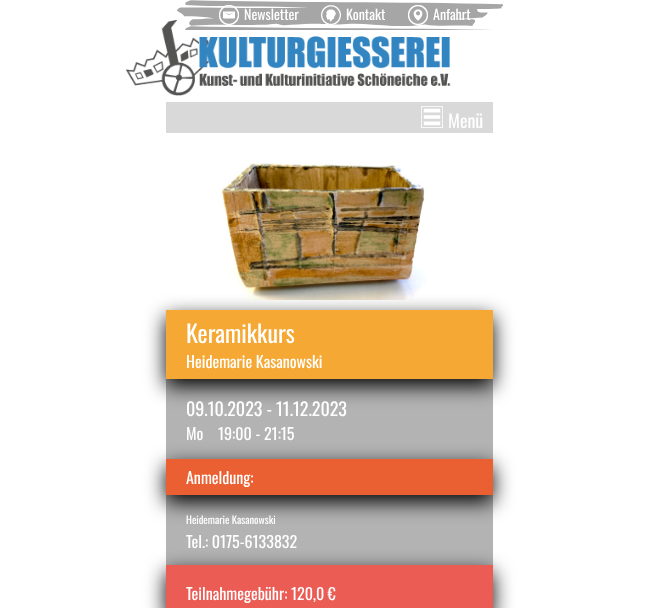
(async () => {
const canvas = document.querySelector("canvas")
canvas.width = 659
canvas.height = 608
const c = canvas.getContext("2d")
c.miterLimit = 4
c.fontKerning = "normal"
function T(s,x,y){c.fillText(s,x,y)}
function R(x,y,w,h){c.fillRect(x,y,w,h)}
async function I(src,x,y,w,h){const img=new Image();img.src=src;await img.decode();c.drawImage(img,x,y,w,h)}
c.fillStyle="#fff"
R(0,0,659,608)
await I("5.png",126,20,325,76)
await I("1.png",177,0,326,30)
await I("2.png",219,5,20,20)
c.font="14px Oswald"
T("Newsletter",244,20)
await I("3.png",321,5,20,20)
T("Kontakt",346,20)
await I("4.png",408,5,20,20)
T("Anfahrt",433,20)
c.fillStyle="#d9d9d9"
R(166,102,327,31)
await I("6.png",421,106,22,22)
c.font="18px Oswald"
c.fillStyle="#fff"
T("Menü",448,128)
await I("7.png",166,143,327,157)
c.fillStyle="#b3b3b3"
R(166,379,327,80)
c.fillStyle="#000"
c.filter="blur(10px)"
c.beginPath()
c.rect(166,317,327,69)
c.fill()
c.filter="none"
c.fillStyle="#f5a833"
R(166,310,327,69)
c.font="24px Oswald"
c.fillStyle="#fff"
T("Keramikkurs",186,343)
c.font="16px Oswald"
T("Heidemarie Kasanowski",186,368)
c.font="18px Oswald"
T("09.10.2023 - 11.12.2023",186,416)
c.font="16px Oswald"
T("Mo",186,440)
T("19:00 - 21:15",218,440)
c.fillStyle="#b3b3b3"
R(166,495,327,70)
c.fillStyle="#000"
c.filter="blur(10px)"
c.beginPath()
c.rect(166,466,327,36)
c.fill()
c.filter="none"
c.fillStyle="#eb6032"
R(166,459,327,36)
c.fillStyle="#fff"
T("Anmeldung:",186,484)
c.font="10.5px Oswald"
T("Heidemarie Kasanowski",186,524)
c.font="16px Oswald"
T("Tel.: 0175-6133832",186,548)
c.fillStyle="#000"
c.filter="blur(10px)"
c.beginPath()
c.rect(166,572,327,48)
c.fill()
c.filter="none"
c.fillStyle="#eb5c55"
R(166,565,327,43)
c.fillStyle="#fff"
T("Teilnahmegebühr: 120,0 €",186,600)
})()
